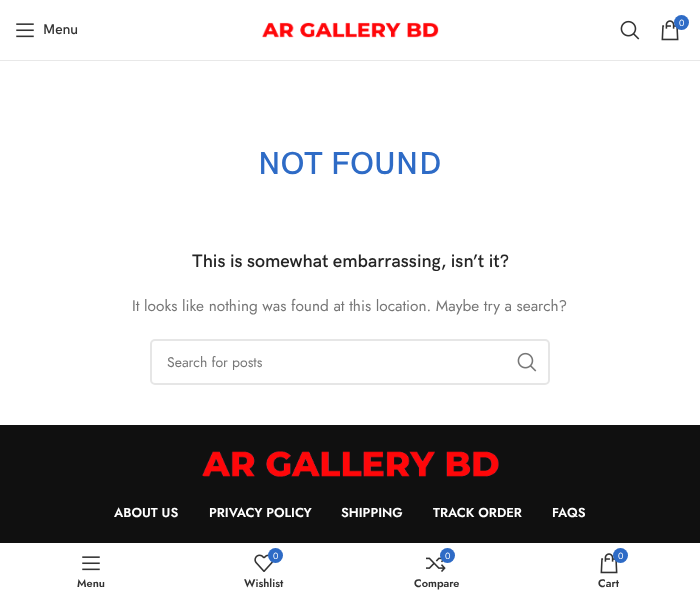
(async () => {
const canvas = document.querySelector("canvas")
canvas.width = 700
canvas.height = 598
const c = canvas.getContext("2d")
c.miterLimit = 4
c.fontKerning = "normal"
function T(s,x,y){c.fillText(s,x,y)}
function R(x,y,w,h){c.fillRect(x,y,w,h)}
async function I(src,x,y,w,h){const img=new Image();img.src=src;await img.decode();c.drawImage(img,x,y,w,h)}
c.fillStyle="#fff"
R(0,0,700,598)
c.fillStyle="#e8e8e8"
R(0,60,700,1)
await I("1.png",16,23,18,15)
c.font="600 14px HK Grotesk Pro"
c.fillStyle="#333"
T("Menu",43,34)
await I("2.png",262,22,177,16)
await I("3.png",620,20,20,20)
await I("4.png",661,20,18,21)
c.fillStyle="#2e6bc6"
c.beginPath()
c.arc(681.5,22.5,7.5,0,7)
c.fill()
c.font="9px Jost"
c.fillStyle="#fff"
T("0",679,26)
c.font="600 32px HK Grotesk Pro"
c.fillStyle="#2e6bc6"
T("NOT FOUND",258,174)
c.font="600 18px HK Grotesk Pro"
c.fillStyle="#242424"
T("This is somewhat embarrassing, isn’t it?",192,267)
c.font="15.4px Jost"
c.fillStyle="#777"
T("It looks like nothing was found at this location. Maybe try a search?",132,311)
c.beginPath()
c.roundRect(151,340,398,44,4)
c.strokeStyle="#e6e6e6"
c.lineWidth=2
c.stroke()
c.font="14px Jost"
T("Search for posts",167,367)
await I("5.png",517,352,20,20)
c.fillStyle="#101010"
R(0,425,700,118)
await I("6.png",202,451,297,26)
c.font="600 13px Jost"
c.fillStyle="#fff"
T("ABOUT US",114,517)
T("PRIVACY POLICY",209,517)
T("SHIPPING",341,517)
T("TRACK ORDER",433,517)
T("FAQS",552,517)
await I("1.png",82,556,18,15)
c.font="600 11px Jost"
c.fillStyle="#333"
T("Menu",77,587)
await I("7.png",254,554,20,18)
c.fillStyle="#2e6bc6"
c.beginPath()
c.arc(275.5,555.5,7.5,0,7)
c.fill()
c.font="9px Jost"
c.fillStyle="#fff"
T("0",273,559)
c.font="600 11px Jost"
c.fillStyle="#333"
T("Wishlist",244,587)
await I("8.png",426,557,20,15)
c.fillStyle="#2e6bc6"
c.beginPath()
c.arc(447.5,555.5,7.5,0,7)
c.fill()
c.font="9px Jost"
c.fillStyle="#fff"
T("0",445,559)
c.font="600 11px Jost"
c.fillStyle="#333"
T("Compare",414,587)
await I("4.png",600,553,18,21)
c.fillStyle="#2e6bc6"
c.beginPath()
c.arc(620.5,555.5,7.5,0,7)
c.fill()
c.font="9px Jost"
c.fillStyle="#fff"
T("0",618,559)
c.font="600 11px Jost"
c.fillStyle="#333"
T("Cart",598,587)
})()
